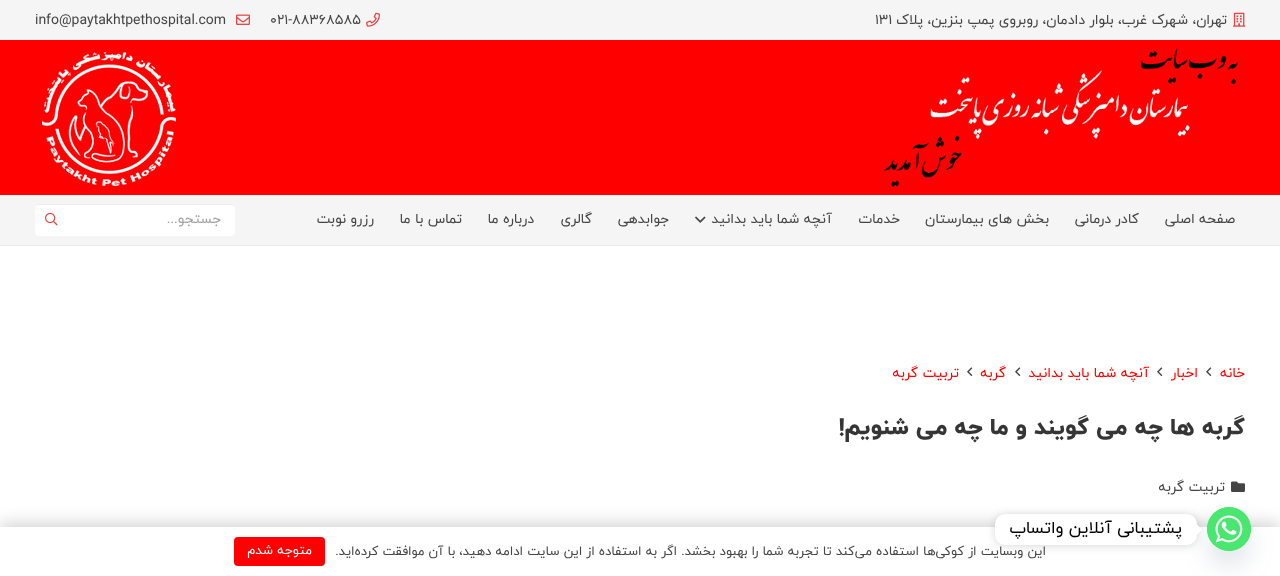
(async () => {
const canvas = document.querySelector("canvas")
canvas.width = 1280
canvas.height = 576
const c = canvas.getContext("2d")
c.miterLimit = 4
c.fontKerning = "normal"
function T(s,x,y){c.fillText(s,x,y)}
function R(x,y,w,h){c.fillRect(x,y,w,h)}
function Q(x,y,w,h,r){c.beginPath();c.roundRect(x,y,w,h,r);c.fill()}
async function I(src,x,y,w,h){const img=new Image();img.src=src;await img.decode();c.drawImage(img,x,y,w,h)}
let path
c.fillStyle="#fff"
R(0,0,1280,576)
c.fillStyle="#f5f5f5"
R(0,0,1280,40)
await I("1.png",1233,12,13,15)
c.direction="rtl"
c.font="14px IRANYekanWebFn"
c.fillStyle="#454545"
T("تهران، شهرک غرب، بلوار دادمان، روبروی پمپ بنزین، پلاک",1227,24)
c.direction="ltr"
T("131",875,24)
await I("2.png",366,12,14,15)
T("021-88368585",270,24)
await I("3.png",236,14,14,11)
T("info@paytakhtpethospital.com",35,24)
c.fillStyle="#f00"
R(0,40,1280,155)
await I("4.png",883,48,355,139)
await I("5.png",42,52,134,134)
c.fillStyle="#ebebeb"
R(0,245,1280,1)
c.fillStyle="#f5f5f5"
R(0,195,1280,50)
c.direction="rtl"
c.fillStyle="#454545"
T("صفحه اصلی",1235,223)
T("کادر درمانی",1139,223)
T("بخش های بیمارستان",1049,223)
T("خدمات",900,223)
T("آنچه شما باید بدانید",832,223)
await I("6.png",695,216,11,7)
T("جوابدهی",669,223)
T("گالری",592,223)
T("درباره ما",534,223)
T("تماس با ما",462,223)
T("رزرو نوبت",374,223)
c.fillStyle="#fff"
Q(35,204,200,32,4)
c.fillStyle="#00000014"
path = new Path2D("M39 205h192c2 0 4 2 4 4v-1c0-2-2-4-4-4h-192c-2 0-4 2-4 4v1c0-2 2-4 4-4z")
c.fill(path)
c.fillStyle="#a2a2a2"
T("جستجو...",221,223)
await I("7.png",45,212,13,14)
c.fillStyle="#f00"
T("خانه",1245,377)
await I("8.png",1206,367,6,10)
T("اخبار",1198,377)
await I("8.png",1157,367,6,10)
T("آنچه شما باید بدانید",1149,377)
await I("8.png",1015,367,6,10)
T("گربه",1006,377)
await I("8.png",967,367,6,10)
T("تربیت گربه",959,377)
c.font="800 23px IRANYekanWebFn"
c.fillStyle="#353535"
T("گربه ها چه می گویند و ما چه می شنویم!",1245,434)
await I("9.png",1231,481,14,11)
c.font="14px IRANYekanWebFn"
c.fillStyle="#454545"
T("تربیت گربه",1225,491)
c.fillStyle="#00000026"
c.filter="blur(7.5px)"
c.beginPath()
c.rect(0,522,1280,49)
c.fill()
c.filter="none"
c.fillStyle="#fff"
R(0,527,1280,49)
c.fillStyle="#49687e29"
c.filter="blur(12px)"
c.beginPath()
c.roundRect(1207,523,44,44,22)
c.fill()
c.filter="none"
c.fillStyle="#49e670"
c.beginPath()
c.arc(1229,529,22,0,7)
c.fill()
await I("10.png",1207,507,44,44)
c.fillStyle="#00000026"
c.filter="blur(4px)"
c.beginPath()
c.roundRect(995,515,202,31,10)
c.fill()
c.filter="none"
c.font="13px IRANYekanWebFn"
c.fillStyle="#454545"
T("این وبسایت از کوکی‌ها استفاده می‌کند تا تجربه شما را بهبود بخشد. اگر به استفاده از این سایت ادامه دهید، با آن موافقت کرده‌اید.",1046,555)
c.fillStyle="#fff"
Q(995,514,202,31,10)
path = new Path2D("M1197 534.5v-10l5 5z")
c.fill(path)
c.font="17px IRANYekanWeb"
c.fillStyle="#000"
T("پشتیبانی آنلاین واتساپ",1182,533)
c.fillStyle="#f00"
Q(234,537,91,29,4)
c.font="13px IRANYekanWebFn"
c.fillStyle="#fff"
T("متوجه شدم",312,554)
})()
